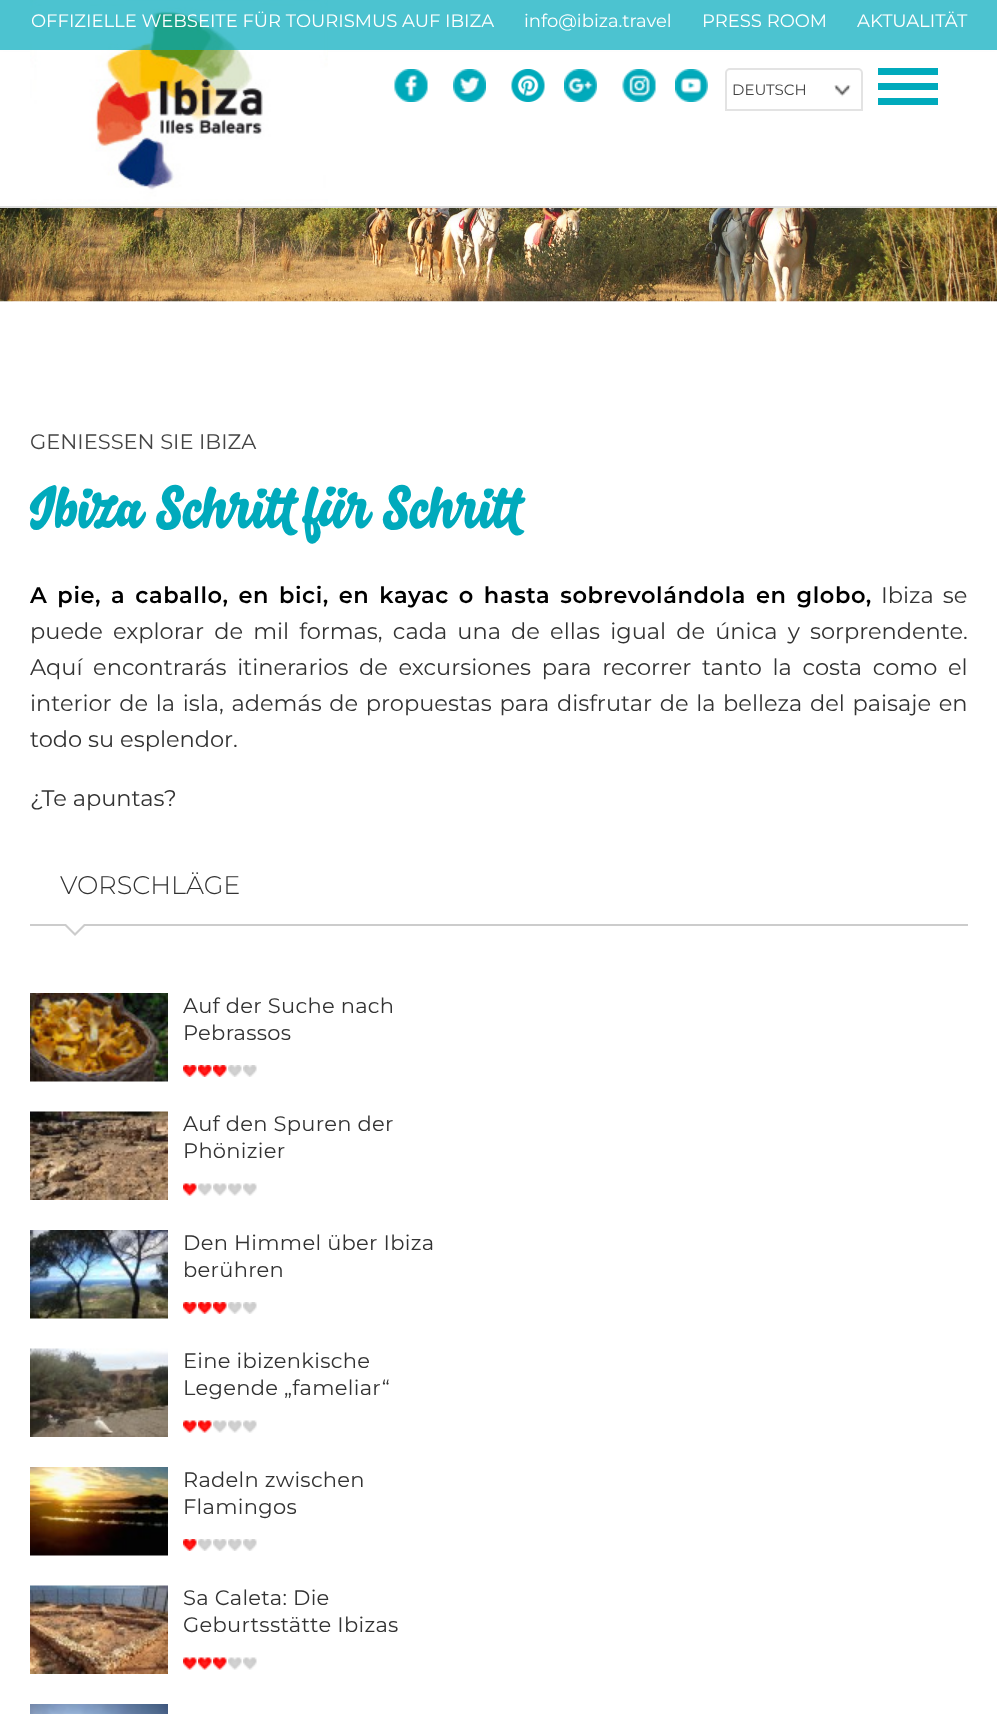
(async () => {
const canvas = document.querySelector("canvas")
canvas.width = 997
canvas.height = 1714
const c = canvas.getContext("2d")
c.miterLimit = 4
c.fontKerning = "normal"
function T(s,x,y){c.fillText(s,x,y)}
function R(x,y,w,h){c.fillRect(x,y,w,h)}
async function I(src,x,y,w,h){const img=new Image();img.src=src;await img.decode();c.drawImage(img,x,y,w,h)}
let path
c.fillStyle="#fff"
R(0,0,997,1714)
await I("9.png",0,208,997,94)
c.fillStyle="#00000014"
c.filter="blur(4px)"
c.beginPath()
c.rect(0,57,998,158)
c.fill()
c.filter="none"
c.fillStyle="#fff"
R(0,52,997,154)
c.fillStyle="#ddd"
R(0,206,997,2)
await I("1.png",30,0,298,205)
c.fillStyle="#00aabc"
R(878,83,60,7)
R(878,68,60,7)
R(878,98,60,7)
c.fillStyle="#00aabcb3"
R(0,0,997,50)
c.font="18px Montserrat"
c.fillStyle="#fff"
T("OFFIZIELLE WEBSEITE FÜR TOURISMUS AUF IBIZA",31,27)
T("info@ibiza.travel",524,27)
T("PRESS ROOM",702,27)
T("AKTUALITÄT",857,27)
await I("2.png",394,69,34,33)
await I("3.png",453,69,33,33)
await I("4.png",511,69,34,33)
await I("5.png",564,69,33,33)
await I("6.png",622,69,34,33)
await I("7.png",675,69,33,33)
await I("8.png",834,85,17,12)
c.beginPath()
c.roundRect(726,69,136,41,[4,4,0,0])
c.strokeStyle="#e3e3e3"
c.lineWidth=2
c.stroke()
c.font="15px Montserrat"
c.fillStyle="#444"
T("DEUTSCH",732,95)
c.font="21px Montserrat"
T("GENIESSEN SIE IBIZA",30,449)
c.font="60px 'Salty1'"
c.fillStyle="#00aabc"
T("Ibiza Schritt für Schritt",30,528)
c.letterSpacing="0.6px"
c.wordSpacing="3.1px"
c.font="600 22.5px Montserrat"
c.fillStyle="#000"
T("A pie, a caballo, en bici, en kayac o hasta sobrevolándola en globo,",30,603)
c.letterSpacing="0px"
c.font="22.5px Montserrat"
c.fillStyle="#333"
T("Ibiza se",881,603)
c.wordSpacing="4.25px"
T("puede explorar de mil formas, cada una de ellas igual de única y sorprendente.",30,639)
c.wordSpacing="4.75px"
T("Aquí encontrarás itinerarios de excursiones para recorrer tanto la costa como el",30,675)
c.wordSpacing="1.75px"
T("interior de la isla, además de propuestas para disfrutar de la belleza del paisaje en",30,711)
c.wordSpacing="0px"
T("todo su esplendor.",30,747)
T("¿Te apuntas?",30,806)
c.fillStyle="#ccc"
R(30,924,938,2)
c.font="300 25.5px Montserrat"
c.fillStyle="#333"
T("VORSCHLÄGE",60,894)
c.fillStyle="#ccc"
path = new Path2D("M63 924h24l-12 12z")
c.fill(path)
c.fillStyle="#fff"
path = new Path2D("M66 924h18l-9 9z")
c.fill(path)
await I("10.png",30,993,138,89)
c.letterSpacing="0.3px"
c.font="21px Montserrat"
c.fillStyle="#333"
T("Auf der Suche nach",183,1013)
T("Pebrassos",183,1040)
await I("11.png",183,1065,14,12)
await I("11.png",198,1065,14,12)
await I("11.png",213,1065,14,12)
await I("12.png",228,1065,14,12)
await I("12.png",243,1065,14,12)
await I("13.png",30,1111,138,89)
T("Auf den Spuren der",183,1131)
T("Phönizier",183,1158)
await I("14.png",183,1183,14,13)
await I("15.png",198,1183,14,13)
await I("15.png",213,1183,14,13)
await I("15.png",228,1183,14,13)
await I("15.png",243,1183,14,13)
await I("16.png",30,1230,138,89)
T("Den Himmel über Ibiza",183,1250)
T("berühren",183,1277)
await I("11.png",183,1302,14,12)
await I("11.png",198,1302,14,12)
await I("11.png",213,1302,14,12)
await I("12.png",228,1302,14,12)
await I("12.png",243,1302,14,12)
await I("17.png",30,1348,138,89)
T("Eine ibizenkische",183,1368)
T("Legende „fameliar“",183,1395)
await I("14.png",183,1420,14,13)
await I("14.png",198,1420,14,13)
await I("15.png",213,1420,14,13)
await I("15.png",228,1420,14,13)
await I("15.png",243,1420,14,13)
await I("18.png",30,1467,138,89)
T("Radeln zwischen",183,1487)
T("Flamingos",183,1514)
await I("11.png",183,1539,14,12)
await I("12.png",198,1539,14,12)
await I("12.png",213,1539,14,12)
await I("12.png",228,1539,14,12)
await I("12.png",243,1539,14,12)
await I("19.png",30,1585,138,89)
T("Sa Caleta: Die",183,1605)
T("Geburtsstätte Ibizas",183,1632)
await I("14.png",183,1657,14,13)
await I("14.png",198,1657,14,13)
await I("14.png",213,1657,14,13)
await I("15.png",228,1657,14,13)
await I("15.png",243,1657,14,13)
await I("20.png",30,1704,138,10)
})()
